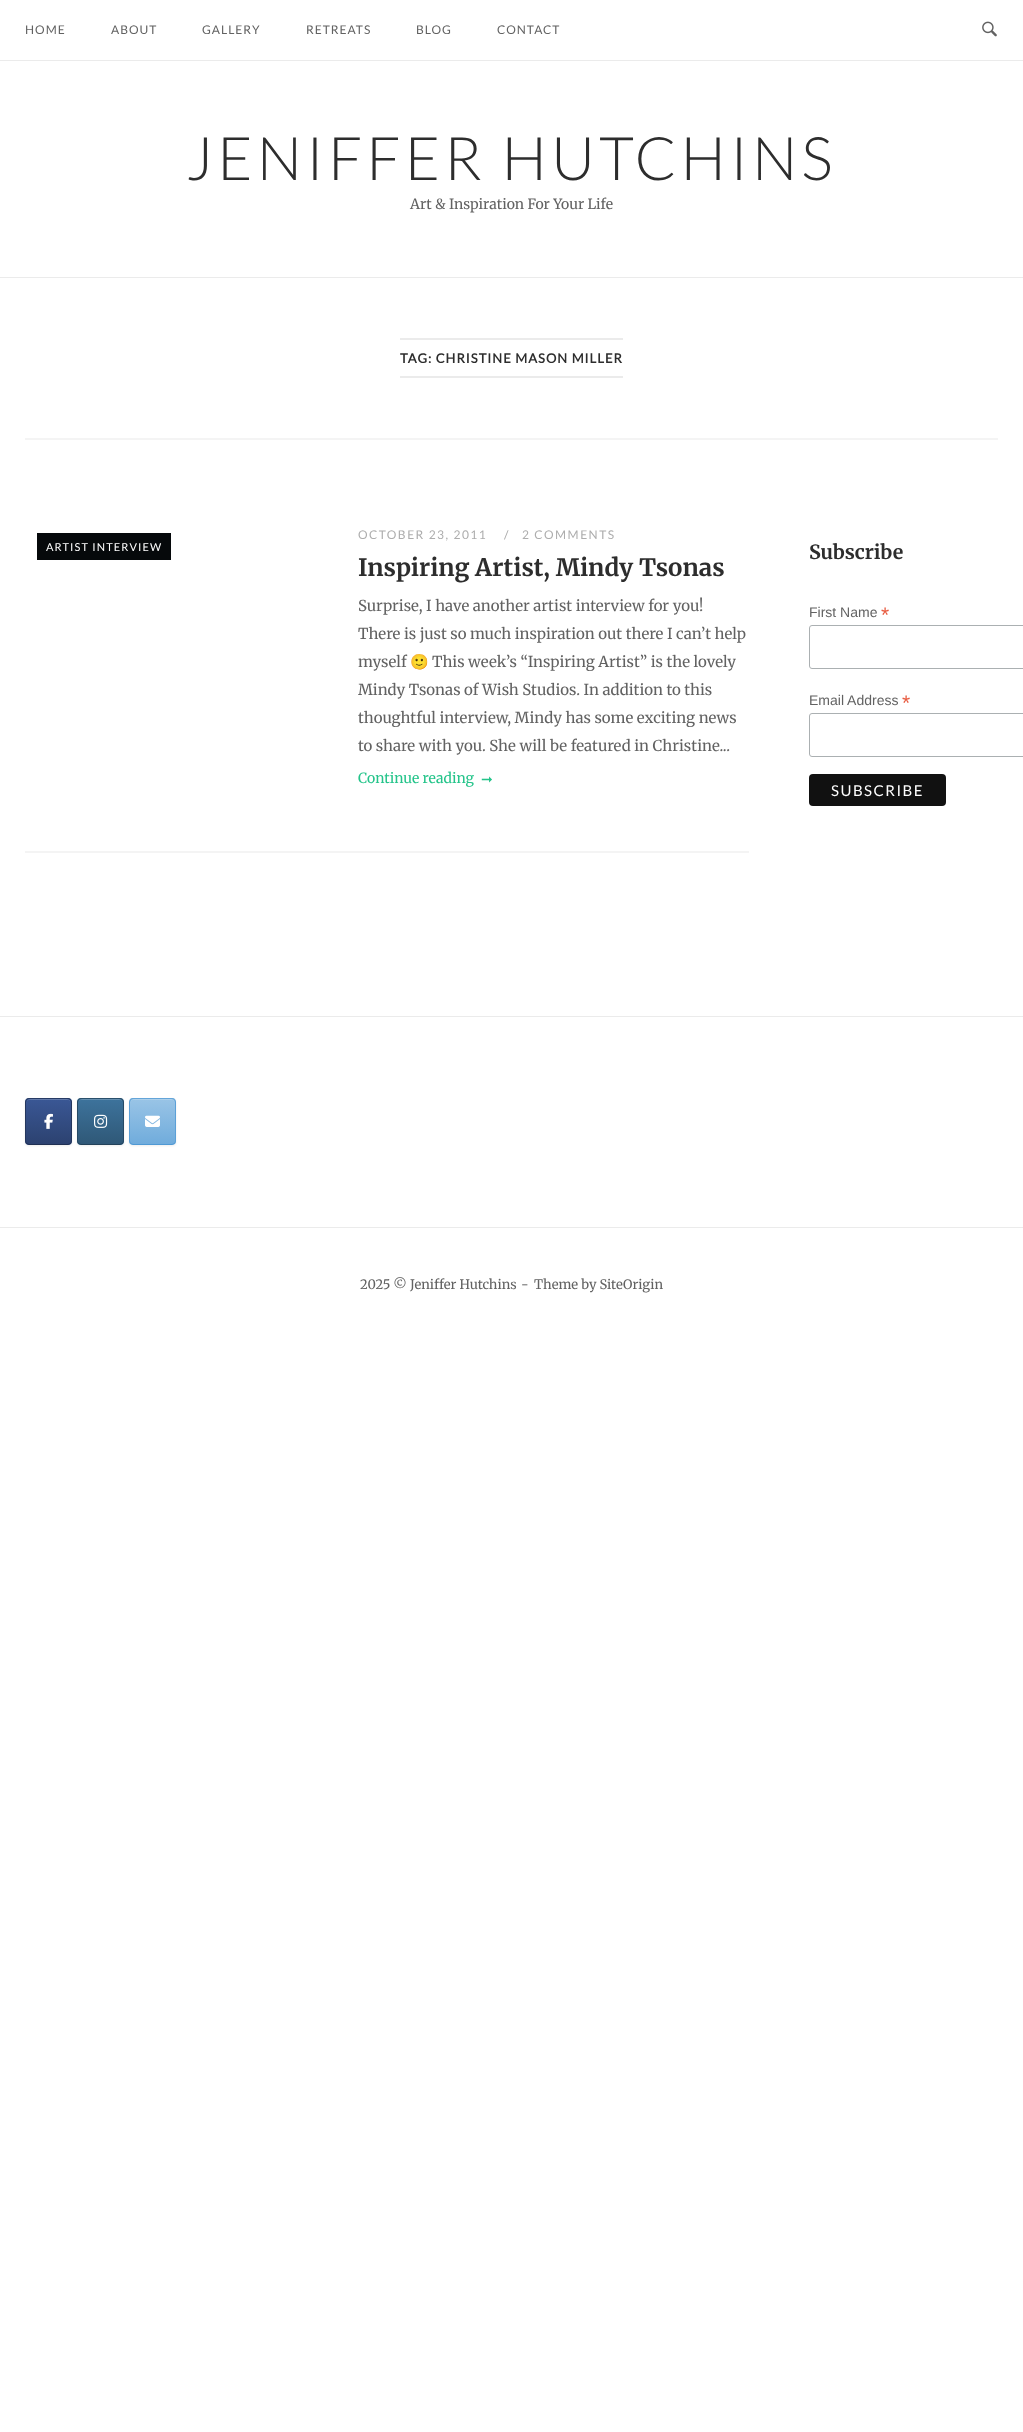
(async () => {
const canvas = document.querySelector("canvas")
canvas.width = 1023
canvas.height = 2432
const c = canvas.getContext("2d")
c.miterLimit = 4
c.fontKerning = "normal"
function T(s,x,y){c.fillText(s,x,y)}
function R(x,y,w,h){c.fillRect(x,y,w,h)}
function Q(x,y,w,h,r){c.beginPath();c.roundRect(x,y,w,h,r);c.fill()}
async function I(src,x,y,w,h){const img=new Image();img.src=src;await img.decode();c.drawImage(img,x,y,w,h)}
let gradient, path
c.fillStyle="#fff"
R(0,0,1023,2432)
c.fillStyle="#ebebeb"
R(0,277,1023,1)
R(0,60,1023,1)
c.letterSpacing="1px"
c.font="12px Lato"
c.fillStyle="#626262"
T("HOME",25,34)
T("ABOUT",111,34)
T("GALLERY",202,34)
T("RETREATS",306,34)
T("BLOG",416,34)
T("CONTACT",497,34)
await I("1.png",982,21,15,16)
c.letterSpacing="4px"
c.font="300 60px Lato"
c.fillStyle="#2d2d2d"
T("JENIFFER HUTCHINS",186,180)
c.letterSpacing="0px"
c.font="14px Merriweather"
c.fillStyle="#626262"
T("Art & Inspiration For Your Life",410,209)
c.fillStyle="#f4f4f4"
R(25,438,973,2)
c.fillStyle="#ebebeb"
R(400,338,223,2)
R(400,376,223,2)
c.letterSpacing="1px"
c.font="bold 13px Lato"
c.fillStyle="#2d2d2d"
T("TAG: CHRISTINE MASON MILLER",400,363)
c.fillStyle="#f4f4f4"
R(25,851,724,2)
c.fillStyle="#06090b"
R(37,533,134,27)
c.letterSpacing="1.1px"
c.font="11px Lato"
c.fillStyle="#fff"
T("ARTIST INTERVIEW",46,551)
c.letterSpacing="1.5px"
c.font="12px Lato"
c.fillStyle="#adadad"
T("OCTOBER 23, 2011",358,539)
T("/",504,539)
T("2 COMMENTS",522,539)
c.letterSpacing="0px"
c.font="bold 24px Merriweather"
c.fillStyle="#2d2d2d"
T("Inspiring Artist, Mindy Tsonas",358,576)
c.font="15px Merriweather"
c.fillStyle="#626262"
T("Surprise, I have another artist interview for you!",358,611)
T("There is just so much inspiration out there I can’t help",358,639)
T("myself",358,667)
c.font="15px Noto Color Emoji"
T("🙂",410,667)
c.font="15px Merriweather"
T("This week’s “Inspiring Artist” is the lovely",432,667)
T("Mindy Tsonas of Wish Studios. In addition to this",358,695)
T("thoughtful interview, Mindy has some exciting news",358,723)
T("to share with you. She will be featured in Christine...",358,751)
c.font="14px Merriweather"
c.fillStyle="#24c48a"
T("Continue reading",358,783)
c.font="14px DejaVu Sans"
T("➞",481,784)
c.font="bold 19.5px Merriweather"
c.fillStyle="#2d2d2d"
T("Subscribe",809,559)
c.font="14px Liberation Sans"
c.fillStyle="#626262"
T("First Name",809,617)
c.font="21px Liberation Sans"
c.fillStyle="#e85c41"
T("*",881,622)
c.beginPath()
c.roundRect(809.5,625.5,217,43,2.5)
c.strokeStyle="#abb0b2"
c.stroke()
c.font="14px Liberation Sans"
c.fillStyle="#626262"
T("Email Address",809,705)
c.font="21px Liberation Sans"
c.fillStyle="#e85c41"
T("*",902,710)
c.beginPath()
c.roundRect(809.5,713.5,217,43,2.5)
c.stroke()
c.fillStyle="#111"
Q(809,774,137,32,4)
c.letterSpacing="1.5px"
c.font="15px Lato"
c.fillStyle="#fff"
T("SUBSCRIBE",831,796)
c.fillStyle="#ebebeb"
R(0,1016,1023,1)
c.fillStyle="#00000012"
c.filter="blur(1px)"
c.beginPath()
c.roundRect(25,1099,47,47,4)
c.fill()
c.filter="none"
c.save()
c.beginPath()
c.roundRect(25,1098,47,47,4)
c.clip()
gradient = c.createLinearGradient(26,1099,26,1054)
gradient.addColorStop(0,"#2c4270")
gradient.addColorStop(1,"#3a5795")
c.fillStyle = gradient
R(25,1098,47,1)
gradient = c.createLinearGradient(26,1144,26,1099)
gradient.addColorStop(0,"#2c4270")
gradient.addColorStop(1,"#3a5795")
c.fillStyle = gradient
R(25,1099,47,45)
gradient = c.createLinearGradient(26,1189,26,1144)
gradient.addColorStop(0,"#2c4270")
gradient.addColorStop(1,"#3a5795")
c.fillStyle = gradient
R(25,1144,47,1)
c.restore()
c.fillStyle="#6179aa"
path = new Path2D("M29 1100h39c2 0 3 1 3 3c0-5-5-4-9-4h-26c-5 0-10-1-10 4c0-2 1-3 3-3z")
c.fill(path)
path = new Path2D("M26.5 1099.5l2.5-1h39l2.5 1")
c.strokeStyle="#273b65"
c.stroke(path)
path = new Path2D("M70.5 1099.5l1 2.5v39l-1 2.5")
c.strokeStyle="#25375e"
c.stroke(path)
path = new Path2D("M70.5 1143.5l-2.5 1h-39l-2.5-1")
c.strokeStyle="#203053"
c.stroke(path)
path = new Path2D("M26.5 1143.5l-1-2.5v-39l1-2.5")
c.strokeStyle="#25375e"
c.stroke(path)
await I("2.png",44,1113,9,16)
c.fillStyle="#00000012"
c.filter="blur(1px)"
c.beginPath()
c.roundRect(77,1099,47,47,4)
c.fill()
c.filter="none"
c.save()
c.beginPath()
c.roundRect(77,1098,47,47,4)
c.clip()
gradient = c.createLinearGradient(78,1099,78,1054)
gradient.addColorStop(0,"#2f5877")
gradient.addColorStop(1,"#3d739c")
c.fillStyle = gradient
R(77,1098,47,1)
gradient = c.createLinearGradient(78,1144,78,1099)
gradient.addColorStop(0,"#2f5877")
gradient.addColorStop(1,"#3d739c")
c.fillStyle = gradient
R(77,1099,47,45)
gradient = c.createLinearGradient(78,1189,78,1144)
gradient.addColorStop(0,"#2f5877")
gradient.addColorStop(1,"#3d739c")
c.fillStyle = gradient
R(77,1144,47,1)
c.restore()
c.fillStyle="#648fb0"
path = new Path2D("M81 1100h39c2 0 3 1 3 3c0-5-5-4-9-4h-26c-5 0-10-1-10 4c0-2 1-3 3-3z")
c.fill(path)
path = new Path2D("M78.5 1099.5l2.5-1h39l2.5 1")
c.strokeStyle="#2a506c"
c.stroke(path)
path = new Path2D("M122.5 1099.5l1 2.5v39l-1 2.5")
c.strokeStyle="#274a65"
c.stroke(path)
path = new Path2D("M122.5 1143.5l-2.5 1h-39l-2.5-1")
c.strokeStyle="#23425a"
c.stroke(path)
path = new Path2D("M78.5 1143.5l-1-2.5v-39l1-2.5")
c.strokeStyle="#274a65"
c.stroke(path)
await I("3.png",94,1114,14,14)
c.fillStyle="#00000012"
c.filter="blur(1px)"
c.beginPath()
c.roundRect(129,1099,47,47,4)
c.fill()
c.filter="none"
c.save()
c.beginPath()
c.roundRect(129,1098,47,47,4)
c.clip()
gradient = c.createLinearGradient(130,1099,130,1054)
gradient.addColorStop(0,"#70acdc")
gradient.addColorStop(1,"#99c4e6")
c.fillStyle = gradient
R(129,1098,47,1)
gradient = c.createLinearGradient(130,1144,130,1099)
gradient.addColorStop(0,"#70acdc")
gradient.addColorStop(1,"#99c4e6")
c.fillStyle = gradient
R(129,1099,47,45)
gradient = c.createLinearGradient(130,1189,130,1144)
gradient.addColorStop(0,"#70acdc")
gradient.addColorStop(1,"#99c4e6")
c.fillStyle = gradient
R(129,1144,47,1)
c.restore()
c.fillStyle="#add0eb"
path = new Path2D("M133 1100h39c2 0 3 1 3 3c0-5-5-4-9-4h-26c-5 0-10-1-10 4c0-2 1-3 3-3z")
c.fill(path)
path = new Path2D("M130.5 1099.5l2.5-1h39l2.5 1")
c.strokeStyle="#64a5d9"
c.stroke(path)
path = new Path2D("M174.5 1099.5l1 2.5v39l-1 2.5")
c.strokeStyle="#5ca0d7"
c.stroke(path)
path = new Path2D("M174.5 1143.5l-2.5 1h-39l-2.5-1")
c.strokeStyle="#4f99d4"
c.stroke(path)
path = new Path2D("M130.5 1143.5l-1-2.5v-39l1-2.5")
c.strokeStyle="#5ca0d7"
c.stroke(path)
await I("4.png",145,1115,15,12)
c.fillStyle="#ebebeb"
R(0,1227,1023,1)
c.letterSpacing="0px"
c.font="13px Merriweather"
c.fillStyle="#626262"
T("2025 © Jeniffer Hutchins",360,1289)
T("-",521,1289)
T("Theme by SiteOrigin",534,1289)
})()
